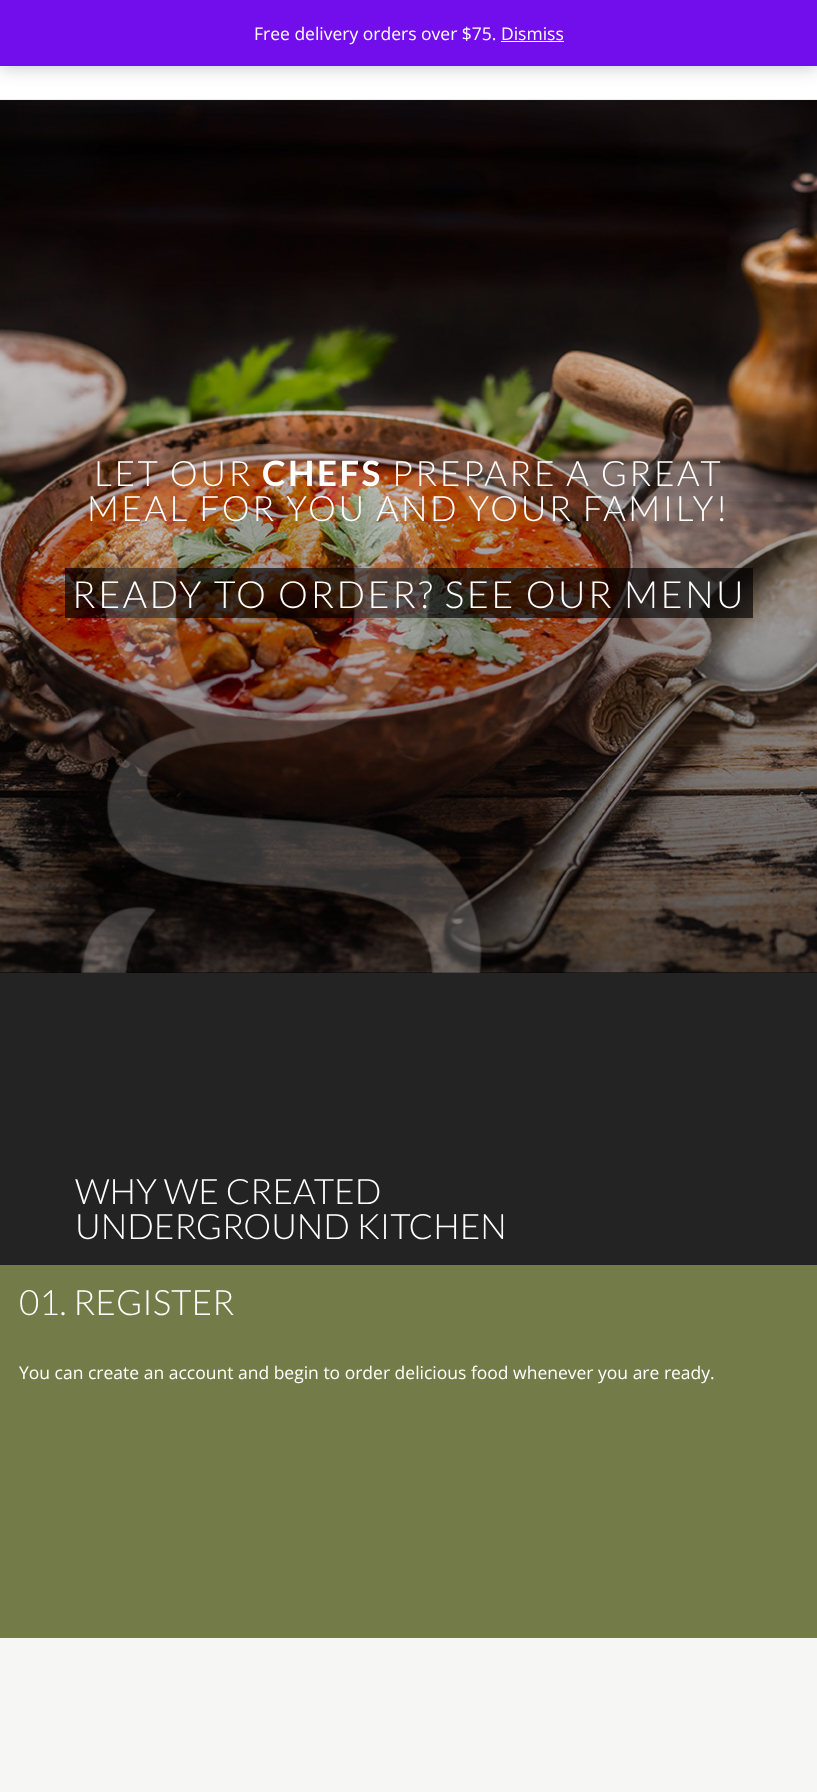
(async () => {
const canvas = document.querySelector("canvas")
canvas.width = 817
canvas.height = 1792
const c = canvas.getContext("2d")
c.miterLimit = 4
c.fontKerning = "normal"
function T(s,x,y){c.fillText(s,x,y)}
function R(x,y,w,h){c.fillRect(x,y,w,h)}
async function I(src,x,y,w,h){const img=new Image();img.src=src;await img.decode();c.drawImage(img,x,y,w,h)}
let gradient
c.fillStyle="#f6f6f4"
R(0,0,817,1792)
c.fillStyle="#fff"
R(0,66,817,33)
c.fillStyle="#00000033"
c.filter="blur(9px)"
c.beginPath()
c.rect(0,1,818,67)
c.fill()
c.filter="none"
c.fillStyle="#720eec"
R(0,0,817,66)
c.font="17.5px Open Sans"
c.fillStyle="#fff"
T("Free delivery orders over $75. Dismiss",254,40)
c.fillStyle="#fcfbfe"
R(501,41,63,1)
c.fillStyle="#eee"
R(0,99,817,1)
c.fillStyle="#000"
R(0,972,817,1)
await I("2.png",0,100,817,873)
gradient = c.createLinearGradient(409,973,409,100)
gradient.addColorStop(0,"#000000a6")
gradient.addColorStop(1,"#00000000")
c.fillStyle = gradient
R(0,173,817,800)
c.letterSpacing="2.5px"
c.font="300 35px Lato"
c.fillStyle="#fff"
T("LET OUR",94,486)
c.font="bold 35px Lato"
T("CHEFS",262,486)
c.font="300 35px Lato"
T("PREPARE A GREAT",392,486)
T("MEAL FOR YOU AND YOUR FAMILY!",87,521)
c.fillStyle="#000000a6"
R(65,568,688,50)
c.font="300 37.5px Lato"
c.fillStyle="#fff"
T("READY TO ORDER? SEE OUR MENU",72,608)
await I("1.png",81,444,443,529)
c.fillStyle="#232323"
R(0,973,817,292)
c.letterSpacing="0px"
c.font="300 35px Lato"
c.fillStyle="#fff"
T("WHY WE CREATED",75,1204)
T("UNDERGROUND KITCHEN",75,1239)
c.fillStyle="#737c48"
R(0,1265,817,373)
c.fillStyle="#fff"
T("01. REGISTER",19,1315)
c.font="17.5px Open Sans"
T("You can create an account and begin to order delicious food whenever you are ready.",19,1379)
})()
